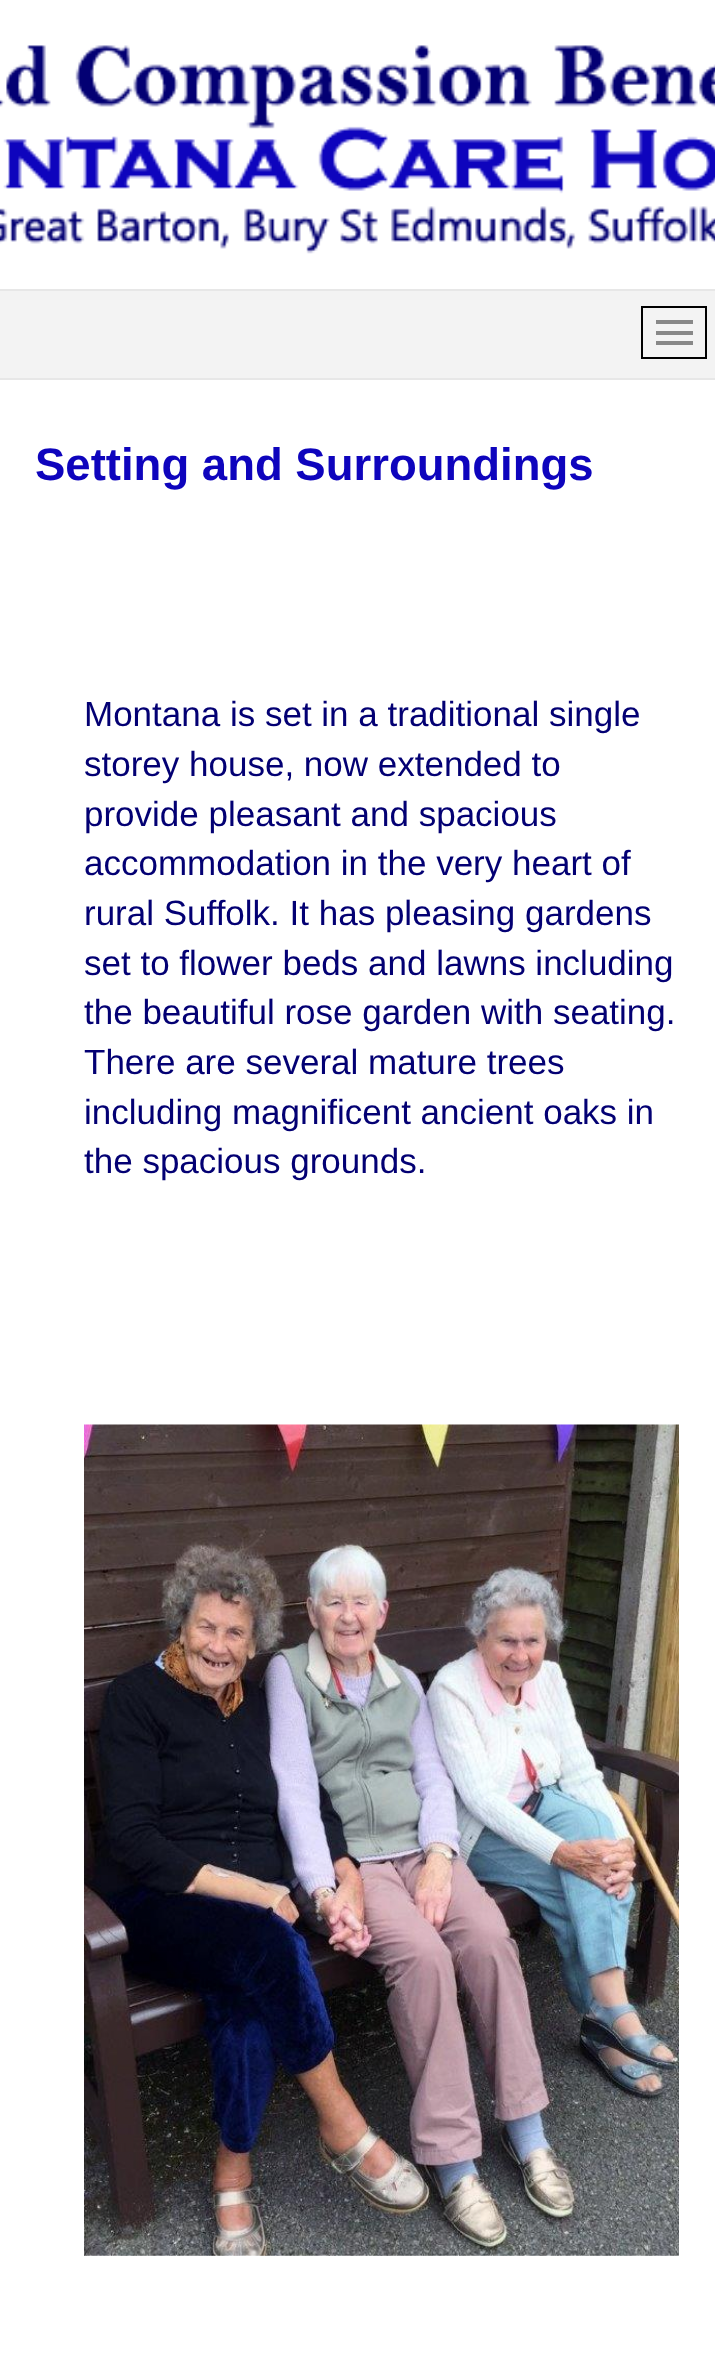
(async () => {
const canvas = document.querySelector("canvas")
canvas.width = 715
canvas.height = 2360
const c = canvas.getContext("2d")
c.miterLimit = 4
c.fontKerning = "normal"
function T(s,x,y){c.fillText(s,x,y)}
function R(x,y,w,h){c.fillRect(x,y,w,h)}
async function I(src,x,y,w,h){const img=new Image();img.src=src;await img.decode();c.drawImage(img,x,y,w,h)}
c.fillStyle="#fff"
R(0,0,715,2360)
await I("1.png",0,45,715,209)
c.fillStyle="#f3f3f3"
R(0,291,715,87)
c.fillStyle="#e7e7e7"
R(0,289,715,2)
R(0,378,715,2)
c.strokeStyle="#000"
c.lineWidth=2
c.strokeRect(642,307,64,51)
c.fillStyle="#888"
R(656,320,37,4)
R(656,331,37,4)
R(656,341,37,4)
c.font="bold 45.5px Liberation Sans"
c.fillStyle="#0e04bd"
T("Setting and Surroundings",35,480)
c.font="35px Liberation Sans"
c.fillStyle="#030073"
T("Montana is set in a traditional single",84,726)
T("storey house, now extended to",84,776)
T("provide pleasant and spacious",84,826)
T("accommodation in the very heart of",84,875)
T("rural Suffolk. It has pleasing gardens",84,925)
T("set to flower beds and lawns including",84,975)
T("the beautiful rose garden with seating.",84,1024)
T("There are several mature trees",84,1074)
T("including magnificent ancient oaks in",84,1124)
T("the spacious grounds.",84,1173)
await I("2.png",84,1424,595,832)
})()
